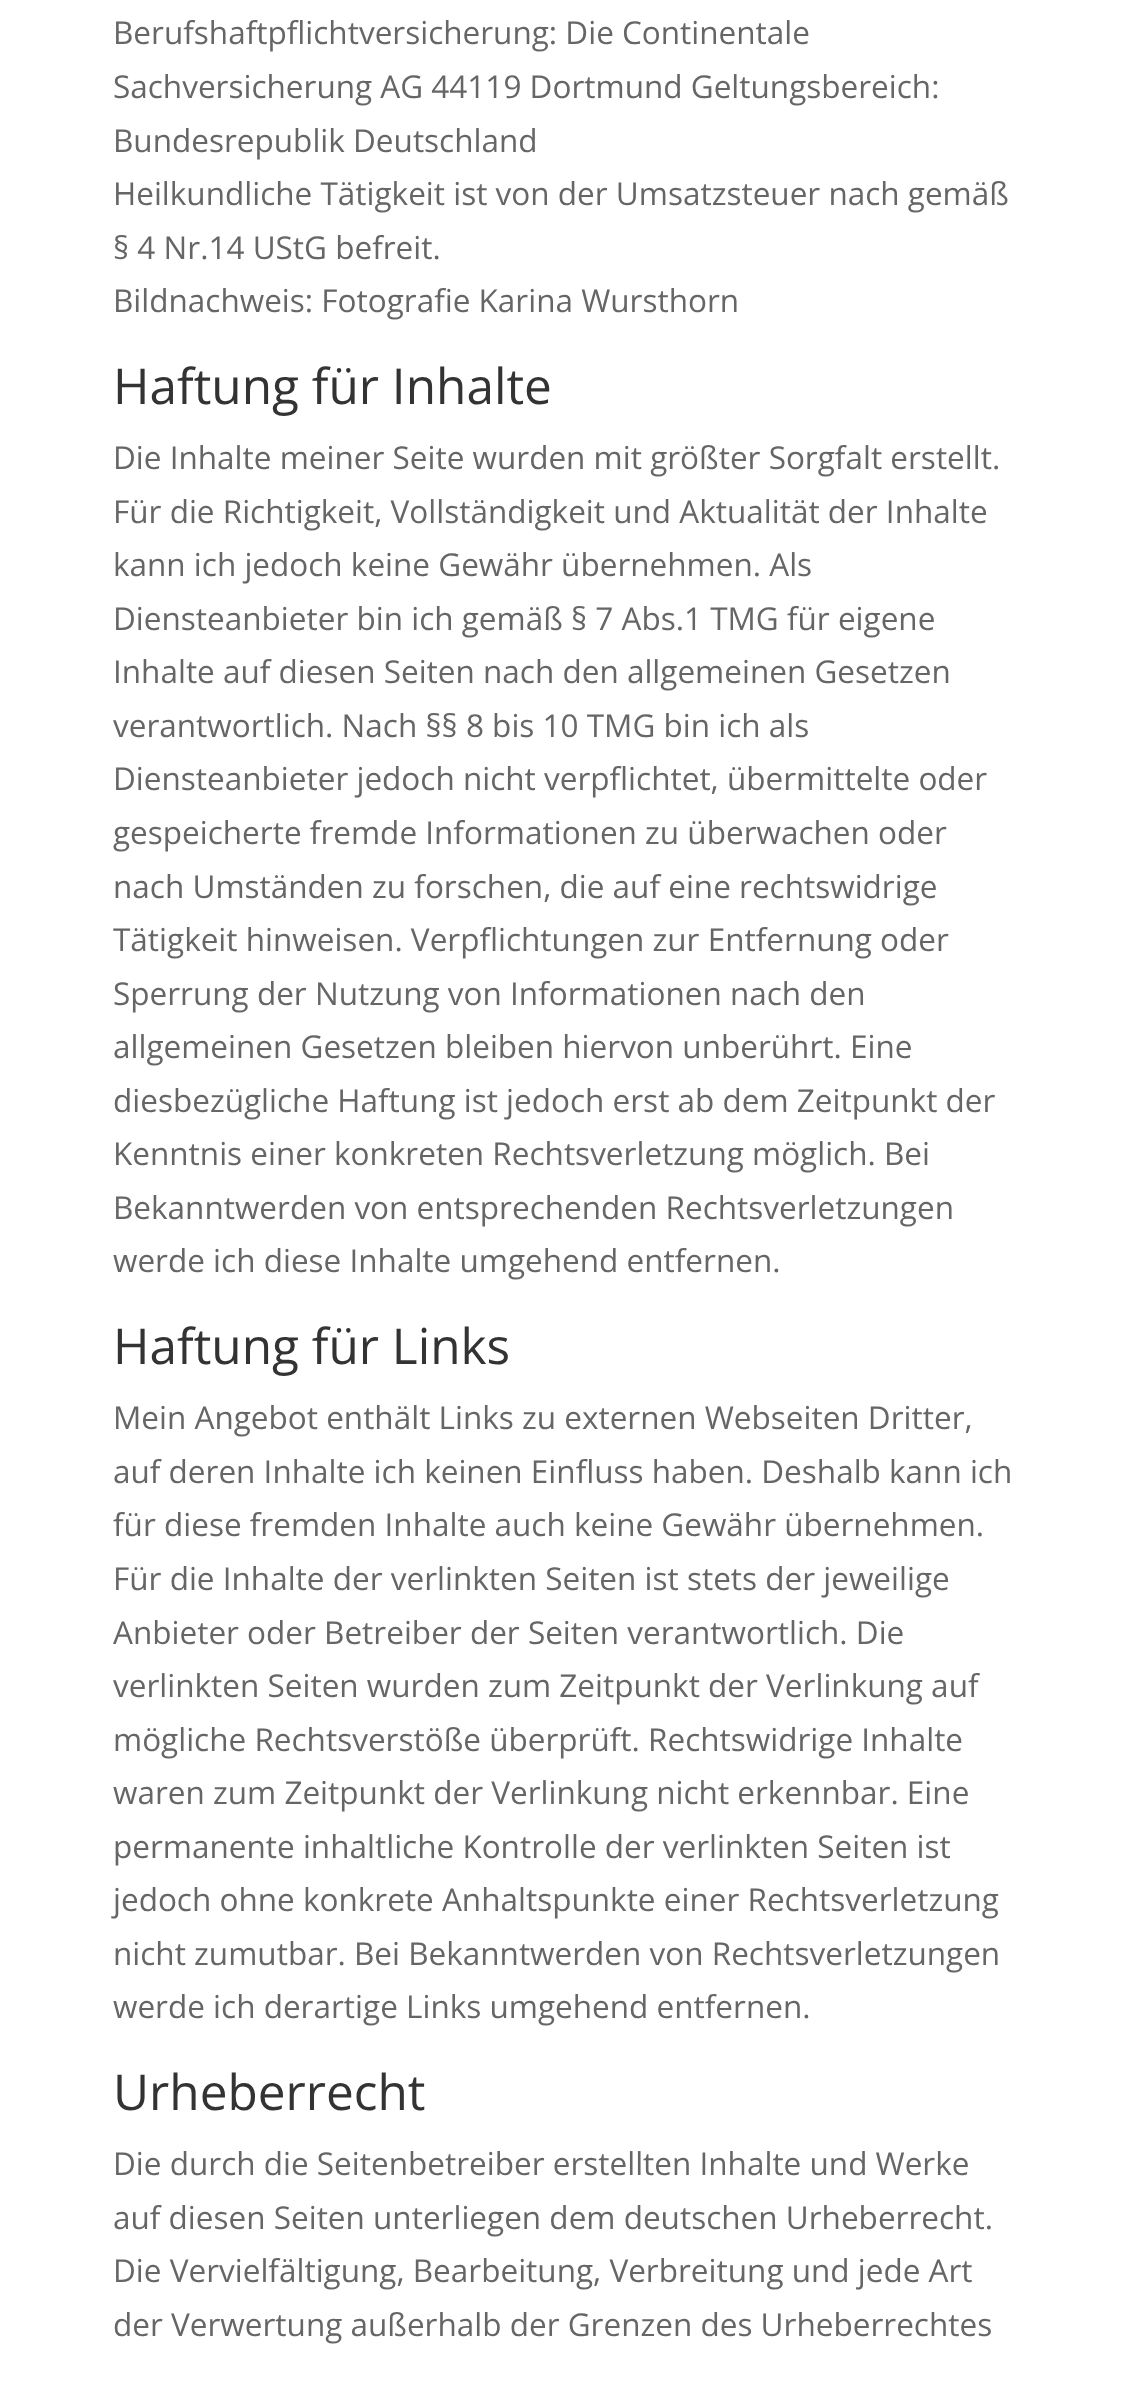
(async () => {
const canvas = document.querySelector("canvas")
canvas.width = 1123
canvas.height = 2381
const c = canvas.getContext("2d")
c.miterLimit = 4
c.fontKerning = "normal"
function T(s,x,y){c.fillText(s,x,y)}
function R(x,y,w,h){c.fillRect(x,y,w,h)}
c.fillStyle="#fff"
R(0,0,1123,2381)
c.font="31.5px Open Sans"
c.fillStyle="#666"
T("Berufshaftpflichtversicherung: Die Continentale",113,44)
T("Sachversicherung AG 44119 Dortmund Geltungsbereich:",113,98)
T("Bundesrepublik Deutschland",113,152)
T("Heilkundliche Tätigkeit ist von der Umsatzsteuer nach gemäß",113,205)
T("§ 4 Nr.14 UStG befreit.",113,259)
T("Bildnachweis: Fotografie Karina Wursthorn",113,312)
c.font="49.5px Open Sans"
c.fillStyle="#333"
T("Haftung für Inhalte",113,404)
c.font="31.5px Open Sans"
c.fillStyle="#666"
T("Die Inhalte meiner Seite wurden mit größter Sorgfalt erstellt.",113,469)
T("Für die Richtigkeit, Vollständigkeit und Aktualität der Inhalte",113,523)
T("kann ich jedoch keine Gewähr übernehmen. Als",113,576)
T("Diensteanbieter bin ich gemäß § 7 Abs.1 TMG für eigene",113,630)
T("Inhalte auf diesen Seiten nach den allgemeinen Gesetzen",113,683)
T("verantwortlich. Nach §§ 8 bis 10 TMG bin ich als",113,737)
T("Diensteanbieter jedoch nicht verpflichtet, übermittelte oder",113,790)
T("gespeicherte fremde Informationen zu überwachen oder",113,844)
T("nach Umständen zu forschen, die auf eine rechtswidrige",113,898)
T("Tätigkeit hinweisen. Verpflichtungen zur Entfernung oder",113,951)
T("Sperrung der Nutzung von Informationen nach den",113,1005)
T("allgemeinen Gesetzen bleiben hiervon unberührt. Eine",113,1058)
T("diesbezügliche Haftung ist jedoch erst ab dem Zeitpunkt der",113,1112)
T("Kenntnis einer konkreten Rechtsverletzung möglich. Bei",113,1165)
T("Bekanntwerden von entsprechenden Rechtsverletzungen",113,1219)
T("werde ich diese Inhalte umgehend entfernen.",113,1272)
c.font="49.5px Open Sans"
c.fillStyle="#333"
T("Haftung für Links",113,1364)
c.font="31.5px Open Sans"
c.fillStyle="#666"
T("Mein Angebot enthält Links zu externen Webseiten Dritter,",113,1429)
T("auf deren Inhalte ich keinen Einfluss haben. Deshalb kann ich",113,1483)
T("für diese fremden Inhalte auch keine Gewähr übernehmen.",113,1536)
T("Für die Inhalte der verlinkten Seiten ist stets der jeweilige",113,1590)
T("Anbieter oder Betreiber der Seiten verantwortlich. Die",113,1644)
T("verlinkten Seiten wurden zum Zeitpunkt der Verlinkung auf",113,1697)
T("mögliche Rechtsverstöße überprüft. Rechtswidrige Inhalte",113,1751)
T("waren zum Zeitpunkt der Verlinkung nicht erkennbar. Eine",113,1804)
T("permanente inhaltliche Kontrolle der verlinkten Seiten ist",113,1858)
T("jedoch ohne konkrete Anhaltspunkte einer Rechtsverletzung",113,1911)
T("nicht zumutbar. Bei Bekanntwerden von Rechtsverletzungen",113,1965)
T("werde ich derartige Links umgehend entfernen.",113,2018)
c.font="49.5px Open Sans"
c.fillStyle="#333"
T("Urheberrecht",113,2110)
c.font="31.5px Open Sans"
c.fillStyle="#666"
T("Die durch die Seitenbetreiber erstellten Inhalte und Werke",113,2175)
T("auf diesen Seiten unterliegen dem deutschen Urheberrecht.",113,2229)
T("Die Vervielfältigung, Bearbeitung, Verbreitung und jede Art",113,2282)
T("der Verwertung außerhalb der Grenzen des Urheberrechtes",113,2336)
})()
